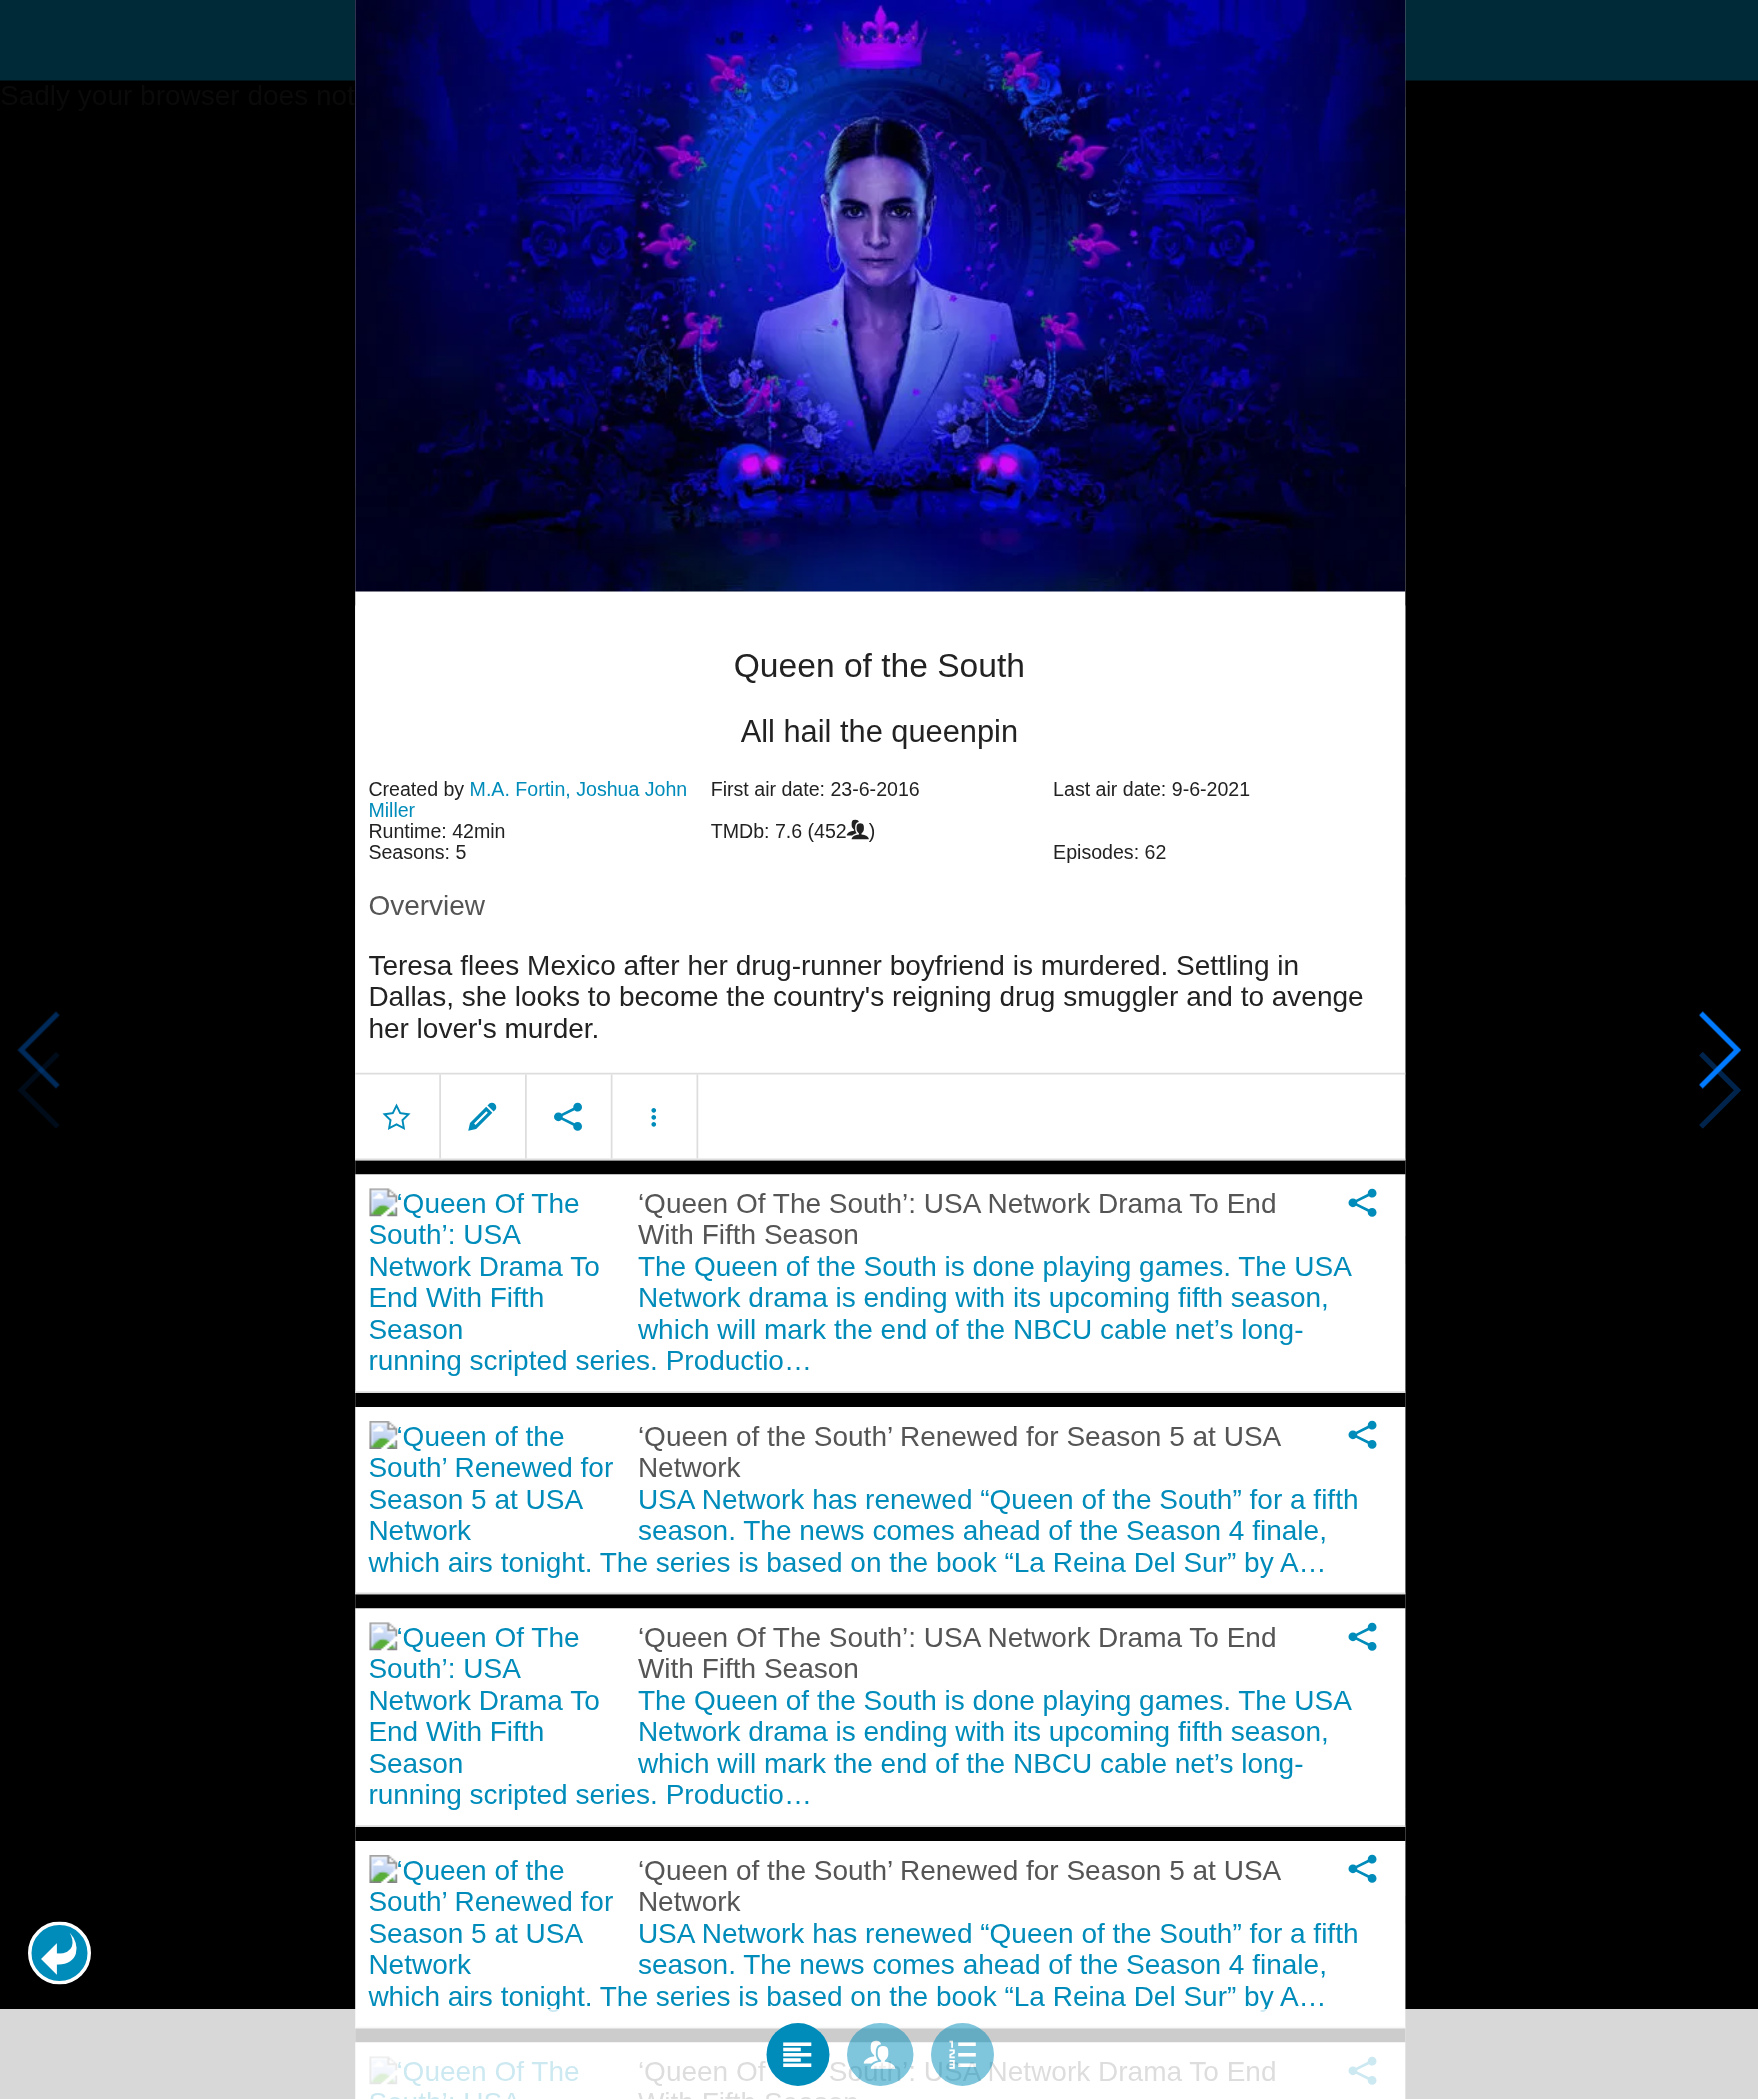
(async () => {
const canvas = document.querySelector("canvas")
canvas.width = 1758
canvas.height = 2099
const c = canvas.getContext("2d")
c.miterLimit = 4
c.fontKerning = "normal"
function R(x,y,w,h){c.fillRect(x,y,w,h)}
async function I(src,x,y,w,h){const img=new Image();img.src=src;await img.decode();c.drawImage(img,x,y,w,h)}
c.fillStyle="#fff"
R(0,0,1758,2099)
await I("1.png",0,0,1758,2099)
})()
